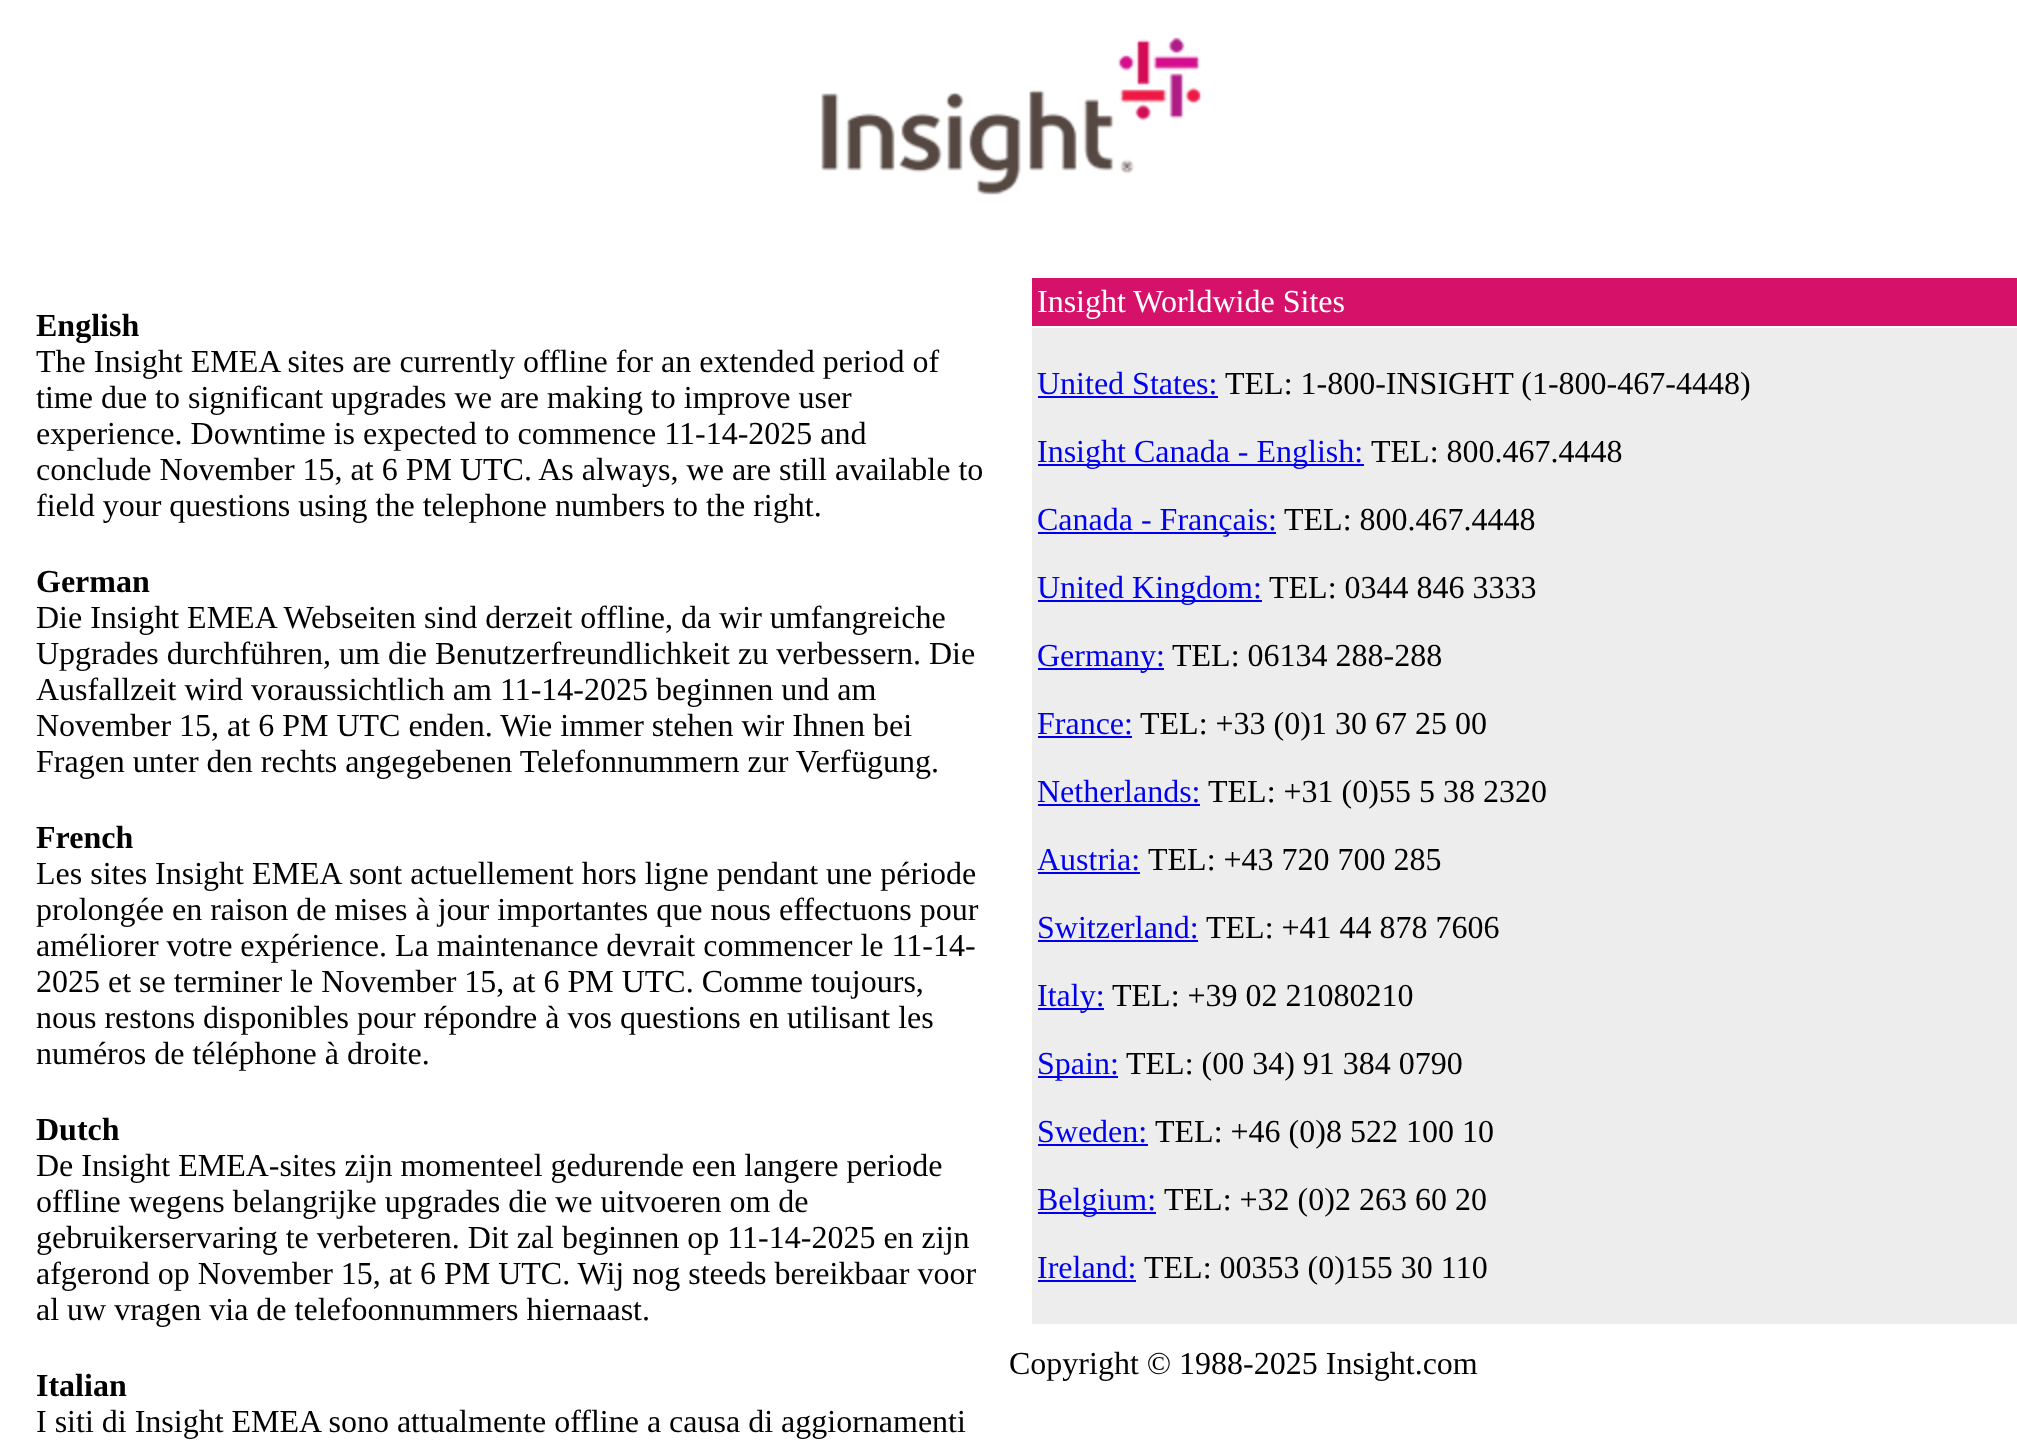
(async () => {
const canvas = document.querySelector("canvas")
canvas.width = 2017
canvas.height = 1450
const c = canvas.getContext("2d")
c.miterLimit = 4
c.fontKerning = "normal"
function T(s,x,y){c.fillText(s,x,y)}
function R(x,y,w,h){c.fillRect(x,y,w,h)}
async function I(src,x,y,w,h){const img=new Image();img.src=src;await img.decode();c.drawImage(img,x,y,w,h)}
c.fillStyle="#fff"
R(0,0,2017,1450)
await I("1.png",821,37,380,158)
c.font="bold 32px Liberation Serif"
c.fillStyle="#000"
T("English",36,336)
c.font="32px Liberation Serif"
T("The Insight EMEA sites are currently offline for an extended period of",36,372)
T("time due to significant upgrades we are making to improve user",36,408)
T("experience. Downtime is expected to commence 11-14-2025 and",36,444)
T("conclude November 15, at 6 PM UTC. As always, we are still available to",36,480)
T("field your questions using the telephone numbers to the right.",36,516)
c.font="bold 32px Liberation Serif"
T("German",36,592)
c.font="32px Liberation Serif"
T("Die Insight EMEA Webseiten sind derzeit offline, da wir umfangreiche",36,628)
T("Upgrades durchführen, um die Benutzerfreundlichkeit zu verbessern. Die",36,664)
T("Ausfallzeit wird voraussichtlich am 11-14-2025 beginnen und am",36,700)
T("November 15, at 6 PM UTC enden. Wie immer stehen wir Ihnen bei",36,736)
T("Fragen unter den rechts angegebenen Telefonnummern zur Verfügung.",36,772)
c.font="bold 32px Liberation Serif"
T("French",36,848)
c.font="32px Liberation Serif"
T("Les sites Insight EMEA sont actuellement hors ligne pendant une période",36,884)
T("prolongée en raison de mises à jour importantes que nous effectuons pour",36,920)
T("améliorer votre expérience. La maintenance devrait commencer le 11-14-",36,956)
T("2025 et se terminer le November 15, at 6 PM UTC. Comme toujours,",36,992)
T("nous restons disponibles pour répondre à vos questions en utilisant les",36,1028)
T("numéros de téléphone à droite.",36,1064)
c.font="bold 32px Liberation Serif"
T("Dutch",36,1140)
c.font="32px Liberation Serif"
T("De Insight EMEA-sites zijn momenteel gedurende een langere periode",36,1176)
T("offline wegens belangrijke upgrades die we uitvoeren om de",36,1212)
T("gebruikerservaring te verbeteren. Dit zal beginnen op 11-14-2025 en zijn",36,1248)
T("afgerond op November 15, at 6 PM UTC. Wij nog steeds bereikbaar voor",36,1284)
T("al uw vragen via de telefoonnummers hiernaast.",36,1320)
c.font="bold 32px Liberation Serif"
T("Italian",36,1396)
c.font="32px Liberation Serif"
T("I siti di Insight EMEA sono attualmente offline a causa di aggiornamenti",36,1432)
c.fillStyle="#d5116a"
R(1032,278,985,48)
c.fillStyle="#fff"
T("Insight Worldwide Sites",1037,312)
c.fillStyle="#ededed"
R(1032,328,985,996)
c.fillStyle="#00e"
T("United States:",1037,394)
R(1038,396,180,2)
c.fillStyle="#000"
T("TEL: 1-800-INSIGHT (1-800-467-4448)",1225,394)
c.fillStyle="#00e"
R(1038,464,326,2)
T("Insight Canada - English:",1037,462)
c.fillStyle="#000"
T("TEL: 800.467.4448",1371,462)
c.fillStyle="#00e"
R(1038,532,238,2)
T("Canada - Français:",1037,530)
c.fillStyle="#000"
T("TEL: 800.467.4448",1284,530)
c.fillStyle="#00e"
R(1038,600,224,2)
T("United Kingdom:",1037,598)
c.fillStyle="#000"
T("TEL: 0344 846 3333",1269,598)
c.fillStyle="#00e"
R(1038,668,126,2)
T("Germany:",1037,666)
c.fillStyle="#000"
T("TEL: 06134 288-288",1172,666)
c.fillStyle="#00e"
T("France:",1037,734)
R(1038,736,94,2)
c.fillStyle="#000"
T("TEL: +33 (0)1 30 67 25 00",1140,734)
c.fillStyle="#00e"
T("Netherlands:",1037,802)
R(1038,804,162,2)
c.fillStyle="#000"
T("TEL: +31 (0)55 5 38 2320",1208,802)
c.fillStyle="#00e"
T("Austria:",1037,870)
R(1038,872,102,2)
c.fillStyle="#000"
T("TEL: +43 720 700 285",1148,870)
c.fillStyle="#00e"
T("Switzerland:",1037,938)
R(1038,940,160,2)
c.fillStyle="#000"
T("TEL: +41 44 878 7606",1206,938)
c.fillStyle="#00e"
R(1038,1008,66,2)
T("Italy:",1037,1006)
c.fillStyle="#000"
T("TEL: +39 02 21080210",1112,1006)
c.fillStyle="#00e"
R(1038,1076,80,2)
T("Spain:",1037,1074)
c.fillStyle="#000"
T("TEL: (00 34) 91 384 0790",1126,1074)
c.fillStyle="#00e"
T("Sweden:",1037,1142)
R(1038,1144,110,2)
c.fillStyle="#000"
T("TEL: +46 (0)8 522 100 10",1155,1142)
c.fillStyle="#00e"
R(1038,1212,118,2)
T("Belgium:",1037,1210)
c.fillStyle="#000"
T("TEL: +32 (0)2 263 60 20",1164,1210)
c.fillStyle="#00e"
T("Ireland:",1037,1278)
R(1038,1280,98,2)
c.fillStyle="#000"
T("TEL: 00353 (0)155 30 110",1144,1278)
T("Copyright © 1988-2025 Insight.com",1009,1374)
})()
